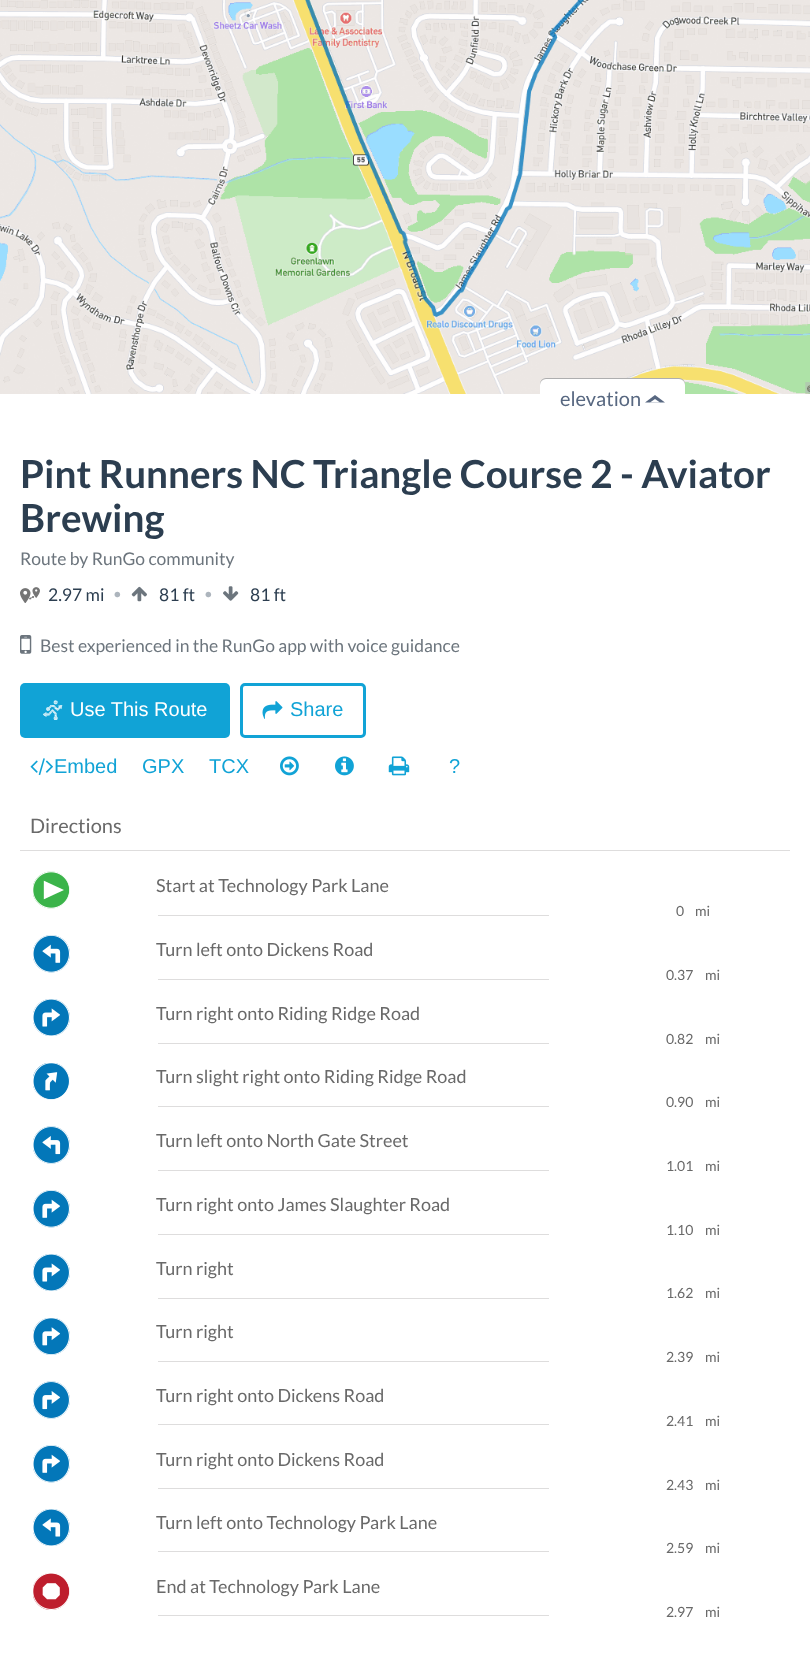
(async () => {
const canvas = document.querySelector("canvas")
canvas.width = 810
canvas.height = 1671
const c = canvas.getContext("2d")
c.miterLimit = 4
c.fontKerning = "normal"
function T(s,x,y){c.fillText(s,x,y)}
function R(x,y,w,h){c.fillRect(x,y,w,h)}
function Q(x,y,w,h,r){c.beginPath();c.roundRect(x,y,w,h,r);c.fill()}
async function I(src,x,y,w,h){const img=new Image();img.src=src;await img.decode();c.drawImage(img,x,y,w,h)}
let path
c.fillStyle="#fff"
R(0,0,810,1671)
await I("1.png",0,0,810,394)
c.fillStyle="#aeaeaf"
c.filter="blur(0.5px)"
c.beginPath()
c.roundRect(540,378,145,37,6)
c.fill()
c.filter="none"
c.fillStyle="#fff"
c.beginPath()
c.roundRect(540,379,145,37,[6,6,0,0])
c.fill()
c.font="20px Lato"
c.fillStyle="#586881"
T("elevation",560,406)
path = new Path2D("M665 402.5h-20l10-7.5z")
c.fill(path)
c.fillStyle="#fff"
path = new Path2D("M660 402.5h-10l5-3.5z")
c.fill(path)
c.font="bold 38.6px Lato"
c.fillStyle="#2c3e50"
T("Pint Runners NC Triangle Course 2 - Aviator",20,488)
T("Brewing",20,532)
c.font="17.5px Lato"
c.fillStyle="#6c757d"
T("Route by RunGo community",20,565)
await I("2.png",20,587,20,16)
c.fillStyle="#2c3e50"
T("2.97 mi",48,601)
c.font="15px Lato"
c.fillStyle="#adb5bd"
T("•",113,599)
await I("3.png",131,586,16,16)
c.font="17.5px Lato"
c.fillStyle="#2c3e50"
T("81 ft",159,601)
c.font="15px Lato"
c.fillStyle="#adb5bd"
T("•",204,599)
await I("4.png",223,586,16,15)
c.font="17.5px Lato"
c.fillStyle="#2c3e50"
T("81 ft",250,601)
await I("5.png",20,635,12,19)
c.fillStyle="#6c757d"
T("Best experienced in the RunGo app with voice guidance",40,652)
c.fillStyle="#11a3d6"
Q(20,683,210,55,5)
await I("6.png",43,700,20,20)
c.font="20px Liberation Sans"
c.fillStyle="#fff"
T("Use This Route",70,716)
c.beginPath()
c.roundRect(241.5,684.5,123,52,3.5)
c.strokeStyle="#11a3d6"
c.lineWidth=3
c.stroke()
await I("7.png",262,701,21,18)
c.fillStyle="#11a3d6"
T("Share",290,716)
await I("8.png",30,758,23,18)
T("Embed",54,773)
T("GPX",142,773)
T("TCX",209,773)
await I("9.png",280,756,19,20)
await I("10.png",335,756,19,20)
await I("11.png",388,756,22,20)
T("?",449,773)
c.font="20px Lato"
c.fillStyle="#696969"
T("Directions",30,833)
c.fillStyle="#dedddd"
R(20,850,770,1)
await I("12.png",33,871,37,38)
c.font="18px Lato"
c.fillStyle="#696969"
T("Start at Technology Park Lane",156,892)
c.fillStyle="#dedddd"
R(158,915,391,1)
c.font="14px Lato"
c.fillStyle="#696969"
T("0",676,916)
T("mi",695,916)
await I("13.png",33,935,37,38)
c.font="18px Lato"
T("Turn left onto Dickens Road",156,956)
c.fillStyle="#dedddd"
R(158,979,391,1)
c.font="14px Lato"
c.fillStyle="#696969"
T("0.37",666,980)
T("mi",705,980)
await I("14.png",33,999,37,37)
c.font="18px Lato"
T("Turn right onto Riding Ridge Road",156,1020)
c.fillStyle="#dedddd"
R(158,1043,391,1)
c.font="14px Lato"
c.fillStyle="#696969"
T("0.82",666,1044)
T("mi",705,1044)
await I("15.png",33,1063,37,37)
c.font="18px Lato"
T("Turn slight right onto Riding Ridge Road",156,1083)
c.fillStyle="#dedddd"
R(158,1106,391,1)
c.font="14px Lato"
c.fillStyle="#696969"
T("0.90",666,1107)
T("mi",705,1107)
await I("16.png",33,1126,37,38)
c.font="18px Lato"
T("Turn left onto North Gate Street",156,1147)
c.fillStyle="#dedddd"
R(158,1170,391,1)
c.font="14px Lato"
c.fillStyle="#696969"
T("1.01",666,1171)
T("mi",705,1171)
await I("17.png",33,1190,37,38)
c.font="18px Lato"
T("Turn right onto James Slaughter Road",156,1211)
c.fillStyle="#dedddd"
R(158,1234,391,1)
c.font="14px Lato"
c.fillStyle="#696969"
T("1.10",666,1235)
T("mi",705,1235)
await I("14.png",33,1254,37,37)
c.font="18px Lato"
T("Turn right",156,1275)
c.fillStyle="#dedddd"
R(158,1298,391,1)
c.font="14px Lato"
c.fillStyle="#696969"
T("1.62",666,1298)
T("mi",705,1298)
await I("18.png",33,1318,37,37)
c.font="18px Lato"
T("Turn right",156,1338)
c.fillStyle="#dedddd"
R(158,1361,391,1)
c.font="14px Lato"
c.fillStyle="#696969"
T("2.39",666,1362)
T("mi",705,1362)
await I("19.png",33,1381,37,38)
c.font="18px Lato"
T("Turn right onto Dickens Road",156,1402)
c.fillStyle="#dedddd"
R(158,1424,391,1)
c.font="14px Lato"
c.fillStyle="#696969"
T("2.41",666,1426)
T("mi",705,1426)
await I("17.png",33,1445,37,38)
c.font="18px Lato"
T("Turn right onto Dickens Road",156,1466)
c.fillStyle="#dedddd"
R(158,1488,391,1)
c.font="14px Lato"
c.fillStyle="#696969"
T("2.43",666,1490)
T("mi",705,1490)
await I("20.png",33,1509,37,37)
c.font="18px Lato"
T("Turn left onto Technology Park Lane",156,1529)
c.fillStyle="#dedddd"
R(158,1551,391,1)
c.font="14px Lato"
c.fillStyle="#696969"
T("2.59",666,1553)
T("mi",705,1553)
await I("21.png",33,1573,37,37)
c.font="18px Lato"
T("End at Technology Park Lane",156,1593)
c.fillStyle="#dedddd"
R(158,1615,391,1)
c.font="14px Lato"
c.fillStyle="#696969"
T("2.97",666,1617)
T("mi",705,1617)
})()
